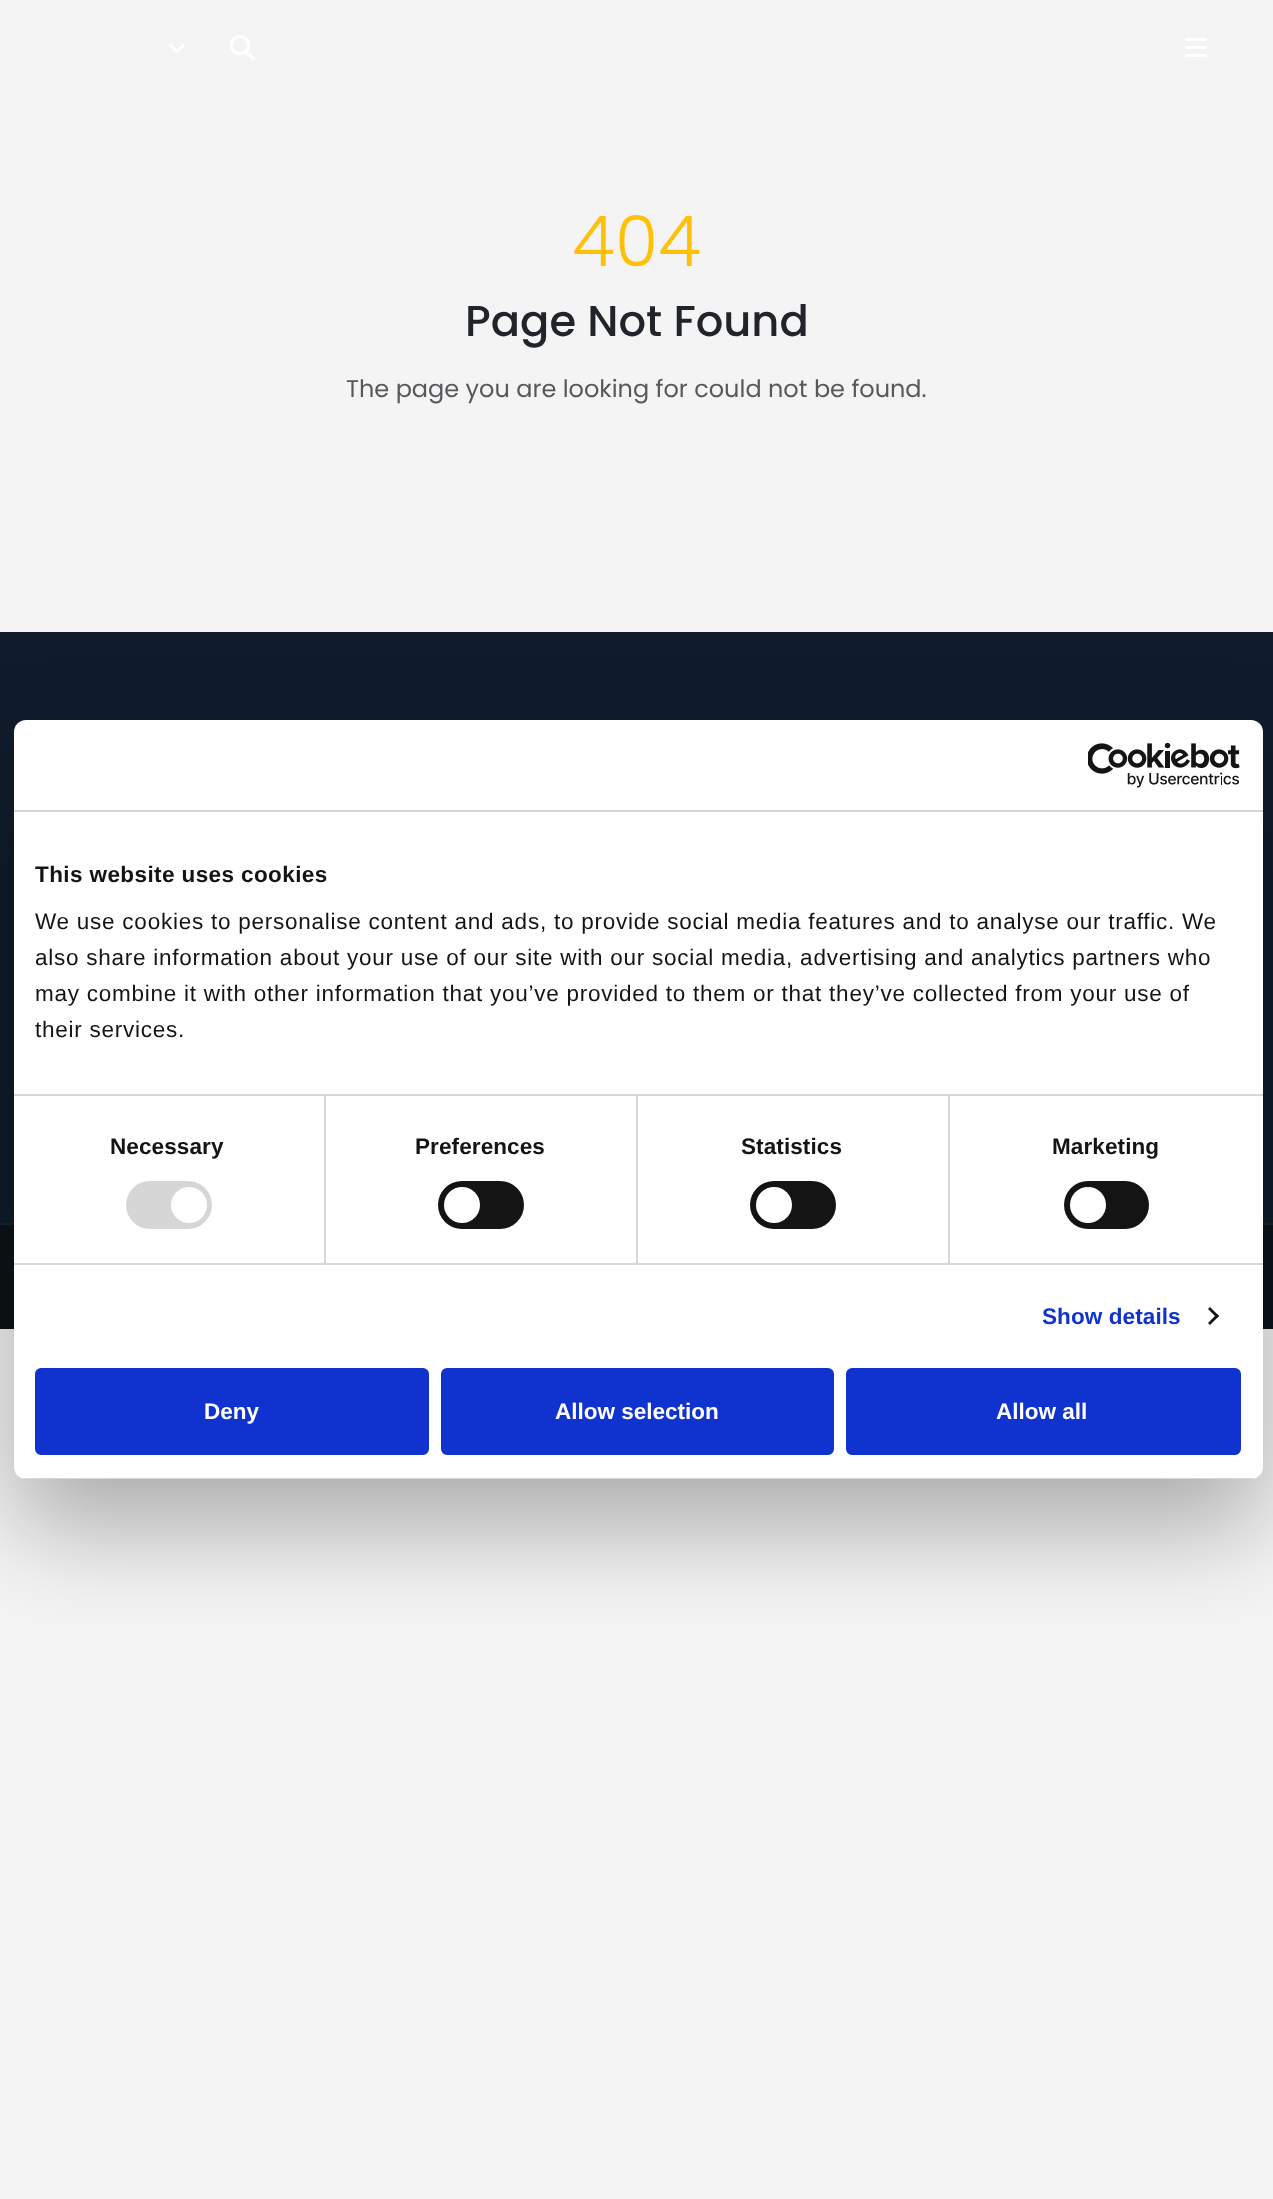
(async () => {
const canvas = document.querySelector("canvas")
canvas.width = 1273
canvas.height = 2199
const c = canvas.getContext("2d")
c.miterLimit = 4
c.fontKerning = "normal"
function T(s,x,y){c.fillText(s,x,y)}
function R(x,y,w,h){c.fillRect(x,y,w,h)}
function Q(x,y,w,h,r){c.beginPath();c.roundRect(x,y,w,h,r);c.fill()}
async function I(src,x,y,w,h){const img=new Image();img.src=src;await img.decode();c.drawImage(img,x,y,w,h)}
let path
c.fillStyle="#f4f4f4"
R(0,0,1273,2199)
await I("1.png",169,44,16,9)
await I("2.png",229,35,26,25)
await I("3.png",1185,38,22,19)
c.font="300 70px Poppins"
c.fillStyle="#ffc107"
T("404",572,266)
c.font="500 43.25px Poppins"
c.fillStyle="#212529"
T("Page Not Found",465,336)
c.font="24px Poppins"
c.fillStyle="#56595c"
T("The page you are looking for could not be found.",346,397)
c.fillStyle="#101c2c"
R(0,632,1273,591)
c.fillStyle="#0b141b"
R(0,1225,1273,104)
c.fillStyle="#1a2229"
R(0,1223,1273,2)
c.fillStyle="#0000004d"
c.filter="blur(51px)"
c.beginPath()
c.roundRect(14,768,1249,759,12)
c.fill()
c.filter="none"
c.fillStyle="#fff"
Q(14,720,1249,759,12)
c.fillStyle="#d6d6d6"
R(14,810,1249,2)
await I("4.png",1088,743,152,45)
R(324,1095,2,168)
R(636,1095,2,168)
R(948,1095,2,168)
R(14,1094,1249,2)
c.letterSpacing="0.4px"
c.font="bold 22.5px Liberation Sans"
c.fillStyle="#141414"
T("This website uses cookies",35,882)
c.letterSpacing="0.75px"
c.font="22.5px Liberation Sans"
T("We use cookies to personalise content and ads, to provide social media features and to analyse our traffic. We",35,929)
T("also share information about your use of our site with our social media, advertising and analytics partners who",35,965)
T("may combine it with other information that you’ve provided to them or that they’ve collected from your use of",35,1001)
T("their services.",35,1037)
c.fillStyle="#d6d6d6"
R(14,1263,1249,2)
c.letterSpacing="0.1px"
c.font="bold 22.5px Liberation Sans"
c.fillStyle="#141414"
T("Necessary",110,1154)
c.fillStyle="#d6d6d6"
Q(126,1181,86,48,24)
c.fillStyle="#fff"
c.beginPath()
c.arc(189,1205,18,0,7)
c.fill()
c.fillStyle="#141414"
T("Preferences",415,1154)
Q(438,1181,86,48,24)
c.fillStyle="#fff"
c.beginPath()
c.arc(462,1205,18,0,7)
c.fill()
c.fillStyle="#141414"
T("Statistics",741,1154)
Q(750,1181,86,48,24)
c.fillStyle="#fff"
c.beginPath()
c.arc(774,1205,18,0,7)
c.fill()
c.fillStyle="#141414"
T("Marketing",1052,1154)
Q(1064,1181,85,48,24)
c.fillStyle="#fff"
c.beginPath()
c.arc(1088,1205,18,0,7)
c.fill()
c.fillStyle="#1032cf"
T("Show details",1042,1324)
c.fillStyle="#141414"
path = new Path2D("M1210 1307l9 9l-2 2l-9-9z")
c.fill(path)
path = new Path2D("M1217 1314l2 2l-9 9l-2-2z")
c.fill(path)
c.save()
c.beginPath()
c.roundRect(14,720,1249,759,12)
c.clip()
c.fillStyle="#d6d6d6"
R(14,1478,1249,1)
c.restore()
c.fillStyle="#1032cf"
c.beginPath()
c.roundRect(36.5,1369.5,391,84,4.5)
c.fill()
c.strokeStyle="#1032cf"
c.lineWidth=3
c.stroke()
c.letterSpacing="0px"
c.fillStyle="#fff"
T("Deny",204,1419)
c.fillStyle="#1032cf"
c.beginPath()
c.roundRect(442.5,1369.5,390,84,4.5)
c.fill()
c.stroke()
c.fillStyle="#fff"
T("Allow selection",555,1419)
c.fillStyle="#1032cf"
c.beginPath()
c.roundRect(847.5,1369.5,392,84,4.5)
c.fill()
c.stroke()
c.fillStyle="#fff"
T("Allow all",996,1419)
})()
